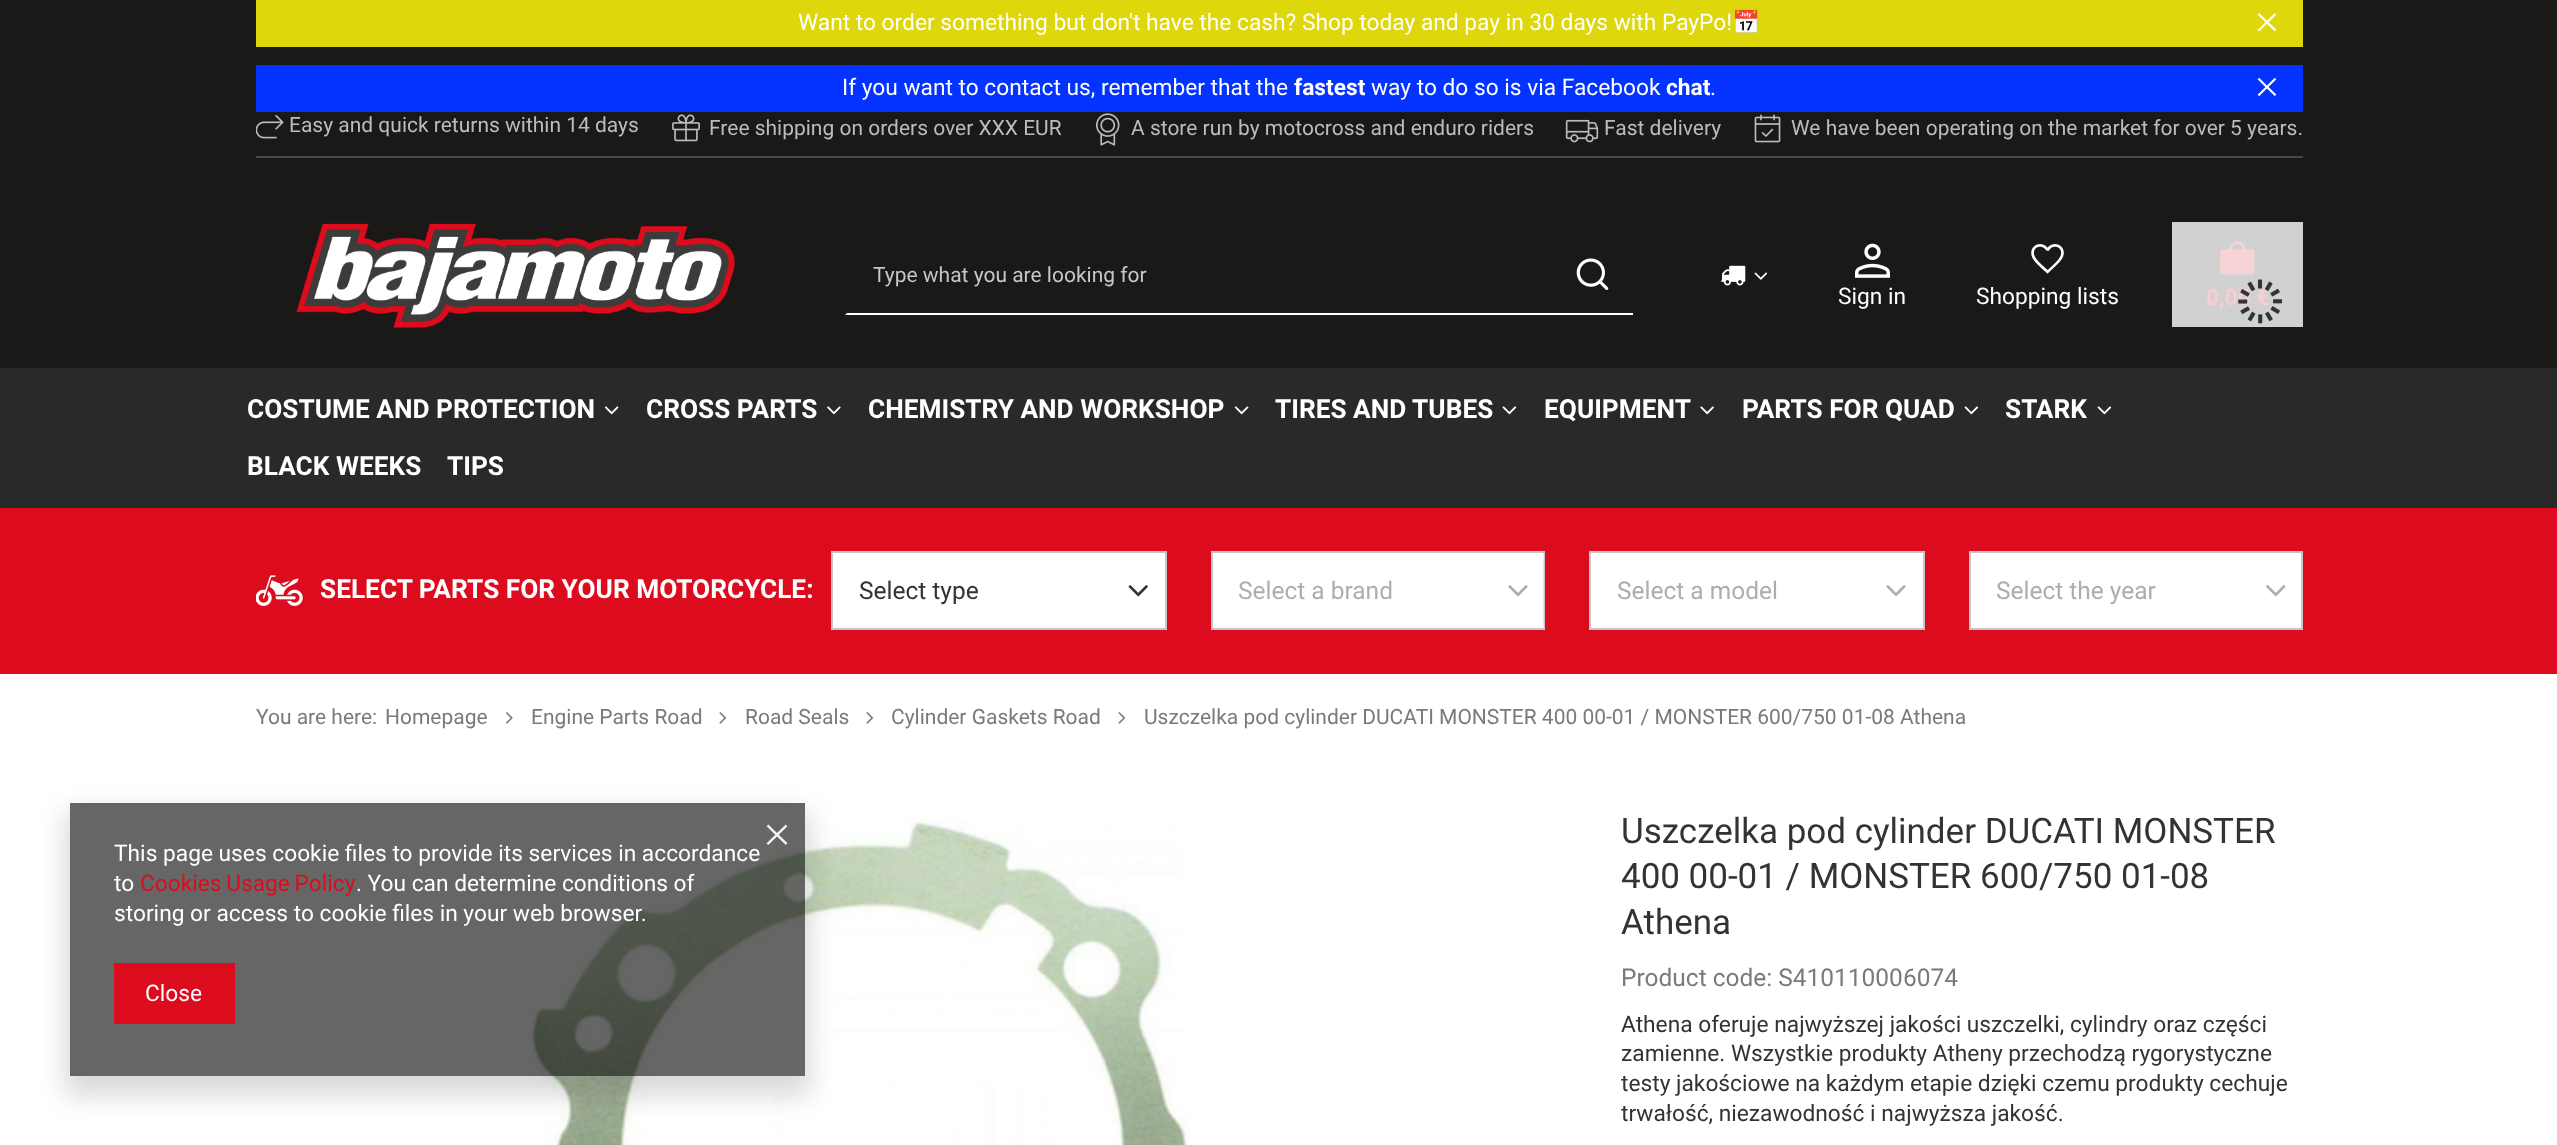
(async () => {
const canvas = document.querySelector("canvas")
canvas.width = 2557
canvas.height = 1145
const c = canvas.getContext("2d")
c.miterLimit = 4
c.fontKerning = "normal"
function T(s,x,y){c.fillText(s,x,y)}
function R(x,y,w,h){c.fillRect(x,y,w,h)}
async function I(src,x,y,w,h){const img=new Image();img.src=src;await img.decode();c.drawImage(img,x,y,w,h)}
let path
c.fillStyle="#fff"
R(0,0,2557,1145)
c.fillStyle="#1a1918"
R(0,0,2557,368)
c.fillStyle="#d1d1d1"
R(2172,222,131,105)
c.fillStyle="#ded70b"
R(256,0,2047,47)
c.font="22.75px Roboto"
c.fillStyle="#fff"
T("Want to order something but don't have the cash? Shop today and pay in 30 days with PayPo!",798,30)
c.font="22.75px Noto Color Emoji"
T("📅",1732,30)
await I("1.png",2257,13,20,19)
c.fillStyle="#0433ff"
R(256,65,2047,47)
c.font="22.75px Roboto"
c.fillStyle="#fff"
T("If you want to contact us, remember that the",842,95)
c.font="bold 22.75px Roboto"
T("fastest",1294,95)
c.font="22.75px Roboto"
T("way to do so is via Facebook",1371,95)
c.font="bold 22.75px Roboto"
T("chat",1666,95)
c.font="22.75px Roboto"
T(".",1710,95)
await I("2.png",2257,77,20,20)
c.fillStyle="#464646"
R(256,156,2047,2)
await I("3.png",256,115,28,24)
c.font="21px Roboto"
c.fillStyle="#bcbcbc"
T("Easy and quick returns within 14 days",289,132)
await I("4.png",672,114,28,28)
T("Free shipping on orders over XXX EUR",709,135)
await I("5.png",1096,113,24,33)
T("A store run by motocross and enduro riders",1131,135)
await I("6.png",1565,119,34,24)
T("Fast delivery",1604,135)
await I("7.png",1754,114,27,29)
T("We have been operating on the market for over 5 years.",1791,135)
await I("8.png",296,223,439,105)
c.fillStyle="#fff"
path = new Path2D("M1633 315h-788l2-2h786z")
c.fill(path)
c.fillStyle="#c6c6c5"
T("Type what you are looking for",873,282)
await I("9.png",1576,258,33,32)
await I("10.png",1721,265,25,21)
await I("11.png",1754,272,14,8)
await I("12.png",1855,243,35,35)
c.font="22.75px Roboto"
c.fillStyle="#fff"
T("Sign in",1838,304)
await I("13.png",2031,244,33,30)
T("Shopping lists",1976,304)
c.font="bold 22.75px Roboto"
c.fillStyle="#f8ced2"
T("0,00 €",2206,305)
await I("14.png",2238,279,44,45)
await I("15.png",2220,241,35,34)
c.fillStyle="#292929"
R(0,368,2557,140)
c.font="bold 26.25px Roboto"
c.fillStyle="#fff"
T("COSTUME AND PROTECTION",247,418)
await I("16.png",604,406,15,9)
T("CROSS PARTS",646,418)
await I("17.png",827,406,14,9)
T("CHEMISTRY AND WORKSHOP",868,418)
await I("16.png",1234,406,15,9)
T("TIRES AND TUBES",1275,418)
await I("18.png",1502,406,15,9)
T("EQUIPMENT",1544,418)
await I("19.png",1700,406,14,9)
T("PARTS FOR QUAD",1742,418)
await I("18.png",1964,406,15,9)
T("STARK",2005,418)
await I("18.png",2097,406,15,9)
T("BLACK WEEKS",247,475)
T("TIPS",447,475)
c.fillStyle="#dd0b1e"
R(0,508,2557,166)
await I("20.png",256,575,47,31)
c.fillStyle="#fff"
T("SELECT PARTS FOR YOUR MOTORCYCLE:",320,598)
c.beginPath()
c.rect(832,552,334,77)
c.fill()
c.strokeStyle="#c4c7c8"
c.lineWidth=2
c.stroke()
c.font="24.5px Roboto"
c.fillStyle="#333"
T("Select type",859,599)
await I("21.png",1128,585,20,12)
c.fillStyle="#fff"
c.beginPath()
c.rect(1212,552,332,77)
c.fill()
c.stroke()
c.fillStyle="#333"
T("Select a brand",1238,599)
await I("22.png",1508,585,20,12)
c.fillStyle="#ffffff99"
R(1239,553,305,75)
c.fillStyle="#fff"
c.beginPath()
c.rect(1590,552,334,77)
c.fill()
c.stroke()
c.fillStyle="#adadad"
T("Select a model",1617,599)
await I("23.png",1886,585,20,12)
c.fillStyle="#fff"
c.beginPath()
c.rect(1970,552,332,77)
c.fill()
c.stroke()
c.fillStyle="#adadad"
T("Select the year",1996,599)
await I("24.png",2266,585,20,12)
c.font="21px Roboto"
c.fillStyle="#7a7a7a"
T("You are here:",256,724)
T("Homepage",385,724)
await I("25.png",506,712,7,12)
T("Engine Parts Road",531,724)
await I("26.png",719,712,8,12)
T("Road Seals",745,724)
await I("26.png",866,712,8,12)
T("Cylinder Gaskets Road",891,724)
await I("26.png",1118,712,8,12)
T("Uszczelka pod cylinder DUCATI MONSTER 400 00-01 / MONSTER 600/750 01-08 Athena",1144,724)
await I("27.png",531,819,661,326)
c.font="35px Roboto"
c.fillStyle="#333"
T("Uszczelka pod cylinder DUCATI MONSTER",1621,843)
T("400 00-01 / MONSTER 600/750 01-08",1621,888)
T("Athena",1621,934)
c.font="24.5px Roboto"
c.fillStyle="#7a7a7a"
T("Product code: S410110006074",1621,986)
c.font="22.75px Roboto"
c.fillStyle="#333"
T("Athena oferuje najwyższej jakości uszczelki, cylindry oraz części",1621,1032)
T("zamienne. Wszystkie produkty Atheny przechodzą rygorystyczne",1621,1061)
T("testy jakościowe na każdym etapie dzięki czemu produkty cechuje",1621,1091)
T("trwałość, niezawodność i najwyższa jakość.",1621,1121)
c.save()
path = new Path2D("M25 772h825v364h-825zm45 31h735v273h-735z")
c.clip(path,"evenodd")
c.fillStyle="#00000026"
c.filter="blur(13px)"
c.beginPath()
c.rect(65,812,745,284)
c.fill()
c.filter="none"
c.restore()
c.fillStyle="#00000099"
R(70,803,735,273)
await I("28.png",766,824,22,21)
c.fillStyle="#fff"
T("This page uses cookie files to provide its services in accordance",114,861)
T("to",114,891)
c.wordSpacing="-1px"
c.fillStyle="#dd0b1e"
T("Cookies Usage Policy",140,891)
c.wordSpacing="0px"
c.fillStyle="#fff"
T(". You can determine conditions of",356,891)
T("storing or access to cookie files in your web browser.",114,921)
c.fillStyle="#dd0b1e"
R(114,963,121,61)
c.fillStyle="#fff"
T("Close",145,1001)
})()
